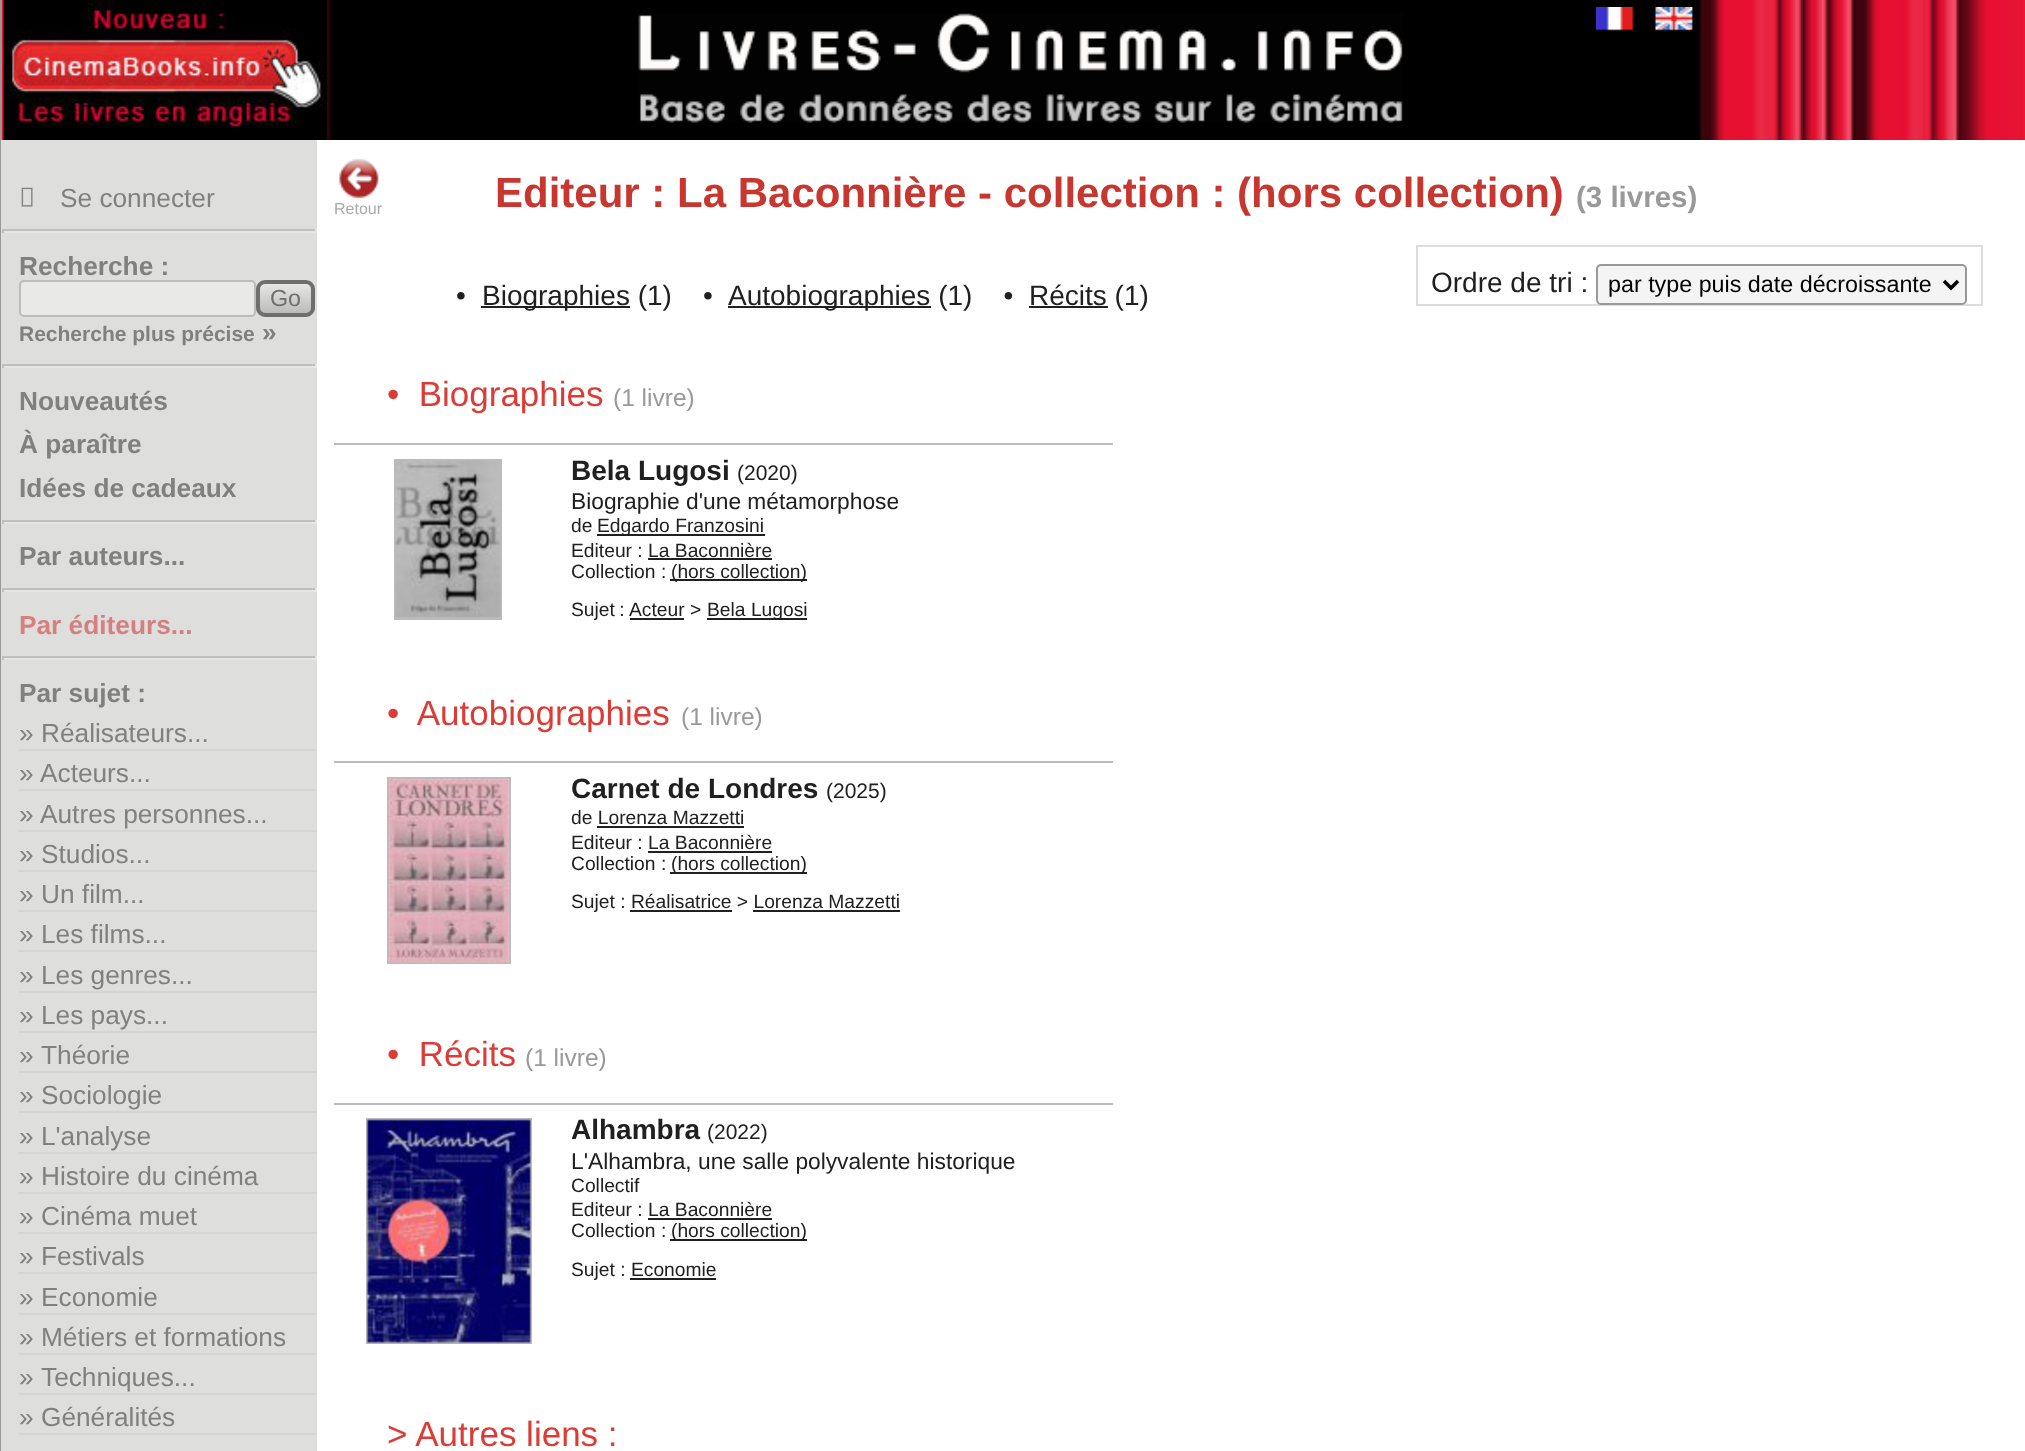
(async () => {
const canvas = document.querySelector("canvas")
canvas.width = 2025
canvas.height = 1451
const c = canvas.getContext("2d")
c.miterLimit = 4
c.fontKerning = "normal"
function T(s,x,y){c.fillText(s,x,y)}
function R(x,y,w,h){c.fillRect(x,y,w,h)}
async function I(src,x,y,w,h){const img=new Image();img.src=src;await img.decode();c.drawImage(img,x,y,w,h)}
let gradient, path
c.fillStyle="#fff"
R(0,0,2025,1451)
c.fillStyle="#999"
R(0,0,2,140)
c.fillStyle="#000"
R(330,0,1370,140)
await I("1.png",1699,0,326,140)
await I("2.png",1,0,330,140)
await I("3.png",638,13,765,110)
await I("4.png",3,0,325,140)
await I("5.png",1596,7,38,24)
await I("6.png",1655,7,38,24)
c.fillStyle="#999"
R(0,140,1,1311)
c.fillStyle="#dededc"
R(1,140,316,1311)
await I("7.png",21,187,12,20)
c.font="26.25px Liberation Sans"
c.fillStyle="#80807f"
T("Se connecter",60,207)
c.fillStyle="#bfbfbe"
R(2,229,315,2)
c.fillStyle="#e6e6e5"
R(315,229,2,4)
R(2,231,315,2)
c.fillStyle="#bfbfbe"
R(2,229,2,4)
c.font="bold 26.25px Liberation Sans"
c.fillStyle="#80807f"
T("Recherche :",19,275)
c.fillStyle="#e9e9e8"
c.beginPath()
c.roundRect(20,281,235,35,4)
c.fill()
c.strokeStyle="#bcbcbb"
c.lineWidth=2
c.stroke()
c.save()
c.beginPath()
c.roundRect(256,280,59,37,9)
c.clip()
gradient = c.createLinearGradient(285,284,285,313)
gradient.addColorStop(0,"#e6e6e5")
gradient.addColorStop(1,"#bcbcbb")
c.fillStyle = gradient
R(256,284,59,29)
c.restore()
c.beginPath()
c.roundRect(258,282,55,33,7)
c.strokeStyle="#6f6f6e"
c.lineWidth=4
c.stroke()
c.font="23.3px Liberation Sans"
c.fillStyle="#6f6f6e"
T("Go",270,306)
c.font="bold 21px Liberation Sans"
c.fillStyle="#80807f"
T("Recherche plus précise",19,341)
c.font="bold 26.25px Liberation Sans"
T("»",262,341)
c.fillStyle="#bfbfbe"
R(2,364,315,2)
c.fillStyle="#e6e6e5"
R(315,364,2,4)
R(2,366,315,2)
c.fillStyle="#bfbfbe"
R(2,364,2,4)
c.fillStyle="#80807f"
T("Nouveautés",19,410)
T("À paraître",19,453)
T("Idées de cadeaux",19,497)
c.fillStyle="#bfbfbe"
R(2,520,315,2)
c.fillStyle="#e6e6e5"
R(315,520,2,4)
R(2,522,315,2)
c.fillStyle="#bfbfbe"
R(2,520,2,4)
c.fillStyle="#80807f"
T("Par auteurs...",19,565)
c.fillStyle="#bfbfbe"
R(2,588,315,2)
c.fillStyle="#e6e6e5"
R(315,588,2,4)
R(2,590,315,2)
c.fillStyle="#bfbfbe"
R(2,588,2,4)
c.fillStyle="#d5807f"
T("Par éditeurs...",19,634)
c.fillStyle="#bfbfbe"
R(2,656,315,2)
c.fillStyle="#e6e6e5"
R(315,656,2,4)
R(2,658,315,2)
c.fillStyle="#bfbfbe"
R(2,656,2,4)
c.fillStyle="#80807f"
T("Par sujet :",19,702)
c.fillStyle="#d5d5d4"
R(19,749,298,2)
c.font="26.25px Liberation Sans"
c.fillStyle="#80807f"
T("»",19,742)
T("Réalisateurs...",41,742)
c.fillStyle="#d5d5d4"
R(19,789,298,2)
c.fillStyle="#80807f"
T("»",19,782)
T("Acteurs...",40,782)
c.fillStyle="#d5d5d4"
R(19,830,298,2)
c.fillStyle="#80807f"
T("»",19,823)
T("Autres personnes...",40,823)
c.fillStyle="#d5d5d4"
R(19,870,298,2)
c.fillStyle="#80807f"
T("»",19,863)
T("Studios...",41,863)
c.fillStyle="#d5d5d4"
R(19,910,298,2)
c.fillStyle="#80807f"
T("»",19,903)
T("Un film...",41,903)
c.fillStyle="#d5d5d4"
R(19,950,298,2)
c.fillStyle="#80807f"
T("»",19,943)
T("Les films...",41,943)
c.fillStyle="#d5d5d4"
R(19,991,298,2)
c.fillStyle="#80807f"
T("»",19,984)
T("Les genres...",41,984)
c.fillStyle="#d5d5d4"
R(19,1031,298,2)
c.fillStyle="#80807f"
T("»",19,1024)
T("Les pays...",41,1024)
c.fillStyle="#d5d5d4"
R(19,1071,298,2)
c.fillStyle="#80807f"
T("»",19,1064)
T("Théorie",41,1064)
c.fillStyle="#d5d5d4"
R(19,1111,298,2)
c.fillStyle="#80807f"
T("»",19,1104)
T("Sociologie",41,1104)
c.fillStyle="#d5d5d4"
R(19,1152,298,2)
c.fillStyle="#80807f"
T("»",19,1145)
T("L'analyse",41,1145)
c.fillStyle="#d5d5d4"
R(19,1192,298,2)
c.fillStyle="#80807f"
T("»",19,1185)
T("Histoire du cinéma",41,1185)
c.fillStyle="#d5d5d4"
R(19,1232,298,2)
c.fillStyle="#80807f"
T("»",19,1225)
T("Cinéma muet",41,1225)
c.fillStyle="#d5d5d4"
R(19,1272,298,2)
c.fillStyle="#80807f"
T("»",19,1265)
T("Festivals",41,1265)
c.fillStyle="#d5d5d4"
R(19,1313,298,2)
c.fillStyle="#80807f"
T("»",19,1306)
T("Economie",41,1306)
c.fillStyle="#d5d5d4"
R(19,1353,298,2)
c.fillStyle="#80807f"
T("»",19,1346)
T("Métiers et formations",41,1346)
c.fillStyle="#d5d5d4"
R(19,1393,298,2)
c.fillStyle="#80807f"
T("»",19,1386)
T("Techniques...",41,1386)
c.fillStyle="#d5d5d4"
R(19,1433,298,2)
c.fillStyle="#80807f"
T("»",19,1426)
T("Généralités",41,1426)
await I("8.png",339,158,40,41)
c.font="16px Liberation Sans"
c.fillStyle="#aaa"
T("Retour",334,214)
c.font="bold 42px Liberation Sans"
c.fillStyle="#c73730"
T("Editeur : La Baconnière - collection : (hors collection)",495,207)
c.font="bold 29.5px Liberation Sans"
c.fillStyle="#999"
T("(3 livres)",1576,207)
c.font="28px Liberation Sans"
c.fillStyle="#202020"
T("•",456,305)
R(481,306,149,2)
T("Biographies (1)    •",482,305)
R(728,306,203,2)
T("Autobiographies (1)    •",728,305)
R(1029,306,79,2)
T("Récits (1)",1029,305)
c.strokeStyle="#ddd"
c.lineWidth=2
c.strokeRect(1417,246,565,59)
T("Ordre de tri :",1431,292)
c.fillStyle="#f4f4f4"
c.beginPath()
c.roundRect(1597,265,369,39,4)
c.fill()
c.strokeStyle="#999"
c.stroke()
path = new Path2D("M1944 281l7 7l7-7")
c.strokeStyle="#000"
c.lineWidth=3.5
c.stroke(path)
c.font="23.3px Liberation Sans"
c.fillStyle="#000"
T("par type puis date décroissante",1608,292)
c.font="35px Liberation Sans"
c.fillStyle="#dc3c35"
T("•  Biographies",387,406)
c.font="24.5px Liberation Sans"
c.fillStyle="#999"
T("(1 livre)",613,406)
c.fillStyle="#bbb"
R(334,443,779,2)
c.fillStyle="#ccc"
c.beginPath()
c.rect(395,460,106,159)
c.fill()
c.strokeStyle="#bbb"
c.lineWidth=2
c.stroke()
await I("9.png",395,460,106,158)
c.font="bold 28px Liberation Sans"
c.fillStyle="#202020"
T("Bela Lugosi",571,480)
c.font="21px Liberation Sans"
T("(2020)",737,480)
c.font="22.75px Liberation Sans"
T("Biographie d'une métamorphose",571,509)
c.font="19.25px Liberation Sans"
T("de",571,532)
R(597,534,168,2)
T("Edgardo Franzosini",597,532)
T("Editeur : La Baconnière",571,557)
R(648,558,124,2)
T("Collection :",571,578)
R(670,579,137,2)
T("(hors collection)",671,578)
c.wordSpacing="-1px"
T("Sujet :",571,616)
c.wordSpacing="0px"
T("Acteur >",629,616)
R(630,618,54,2)
R(707,618,100,2)
T("Bela Lugosi",707,616)
c.font="35px Liberation Sans"
c.fillStyle="#dc3c35"
T("•  Autobiographies",387,725)
c.font="24.5px Liberation Sans"
c.fillStyle="#999"
T("(1 livre)",681,725)
c.fillStyle="#bbb"
R(334,761,779,2)
c.strokeRect(388,778,122,185)
await I("10.png",387,778,123,185)
c.font="bold 28px Liberation Sans"
c.fillStyle="#202020"
T("Carnet de Londres",571,798)
c.font="21px Liberation Sans"
T("(2025)",826,798)
c.font="19.25px Liberation Sans"
T("de Lorenza Mazzetti",571,824)
R(597,826,147,2)
T("Editeur : La Baconnière",571,849)
R(648,851,124,2)
T("Collection :",571,870)
R(670,872,137,2)
T("(hors collection)",671,870)
T("Sujet : Réalisatrice > Lorenza Mazzetti",571,908)
R(630,910,102,2)
R(753,910,147,2)
c.font="35px Liberation Sans"
c.fillStyle="#dc3c35"
T("•  Récits",387,1066)
c.font="24.5px Liberation Sans"
c.fillStyle="#999"
T("(1 livre)",525,1066)
c.fillStyle="#bbb"
R(334,1103,779,2)
c.fillStyle="#ccc"
c.beginPath()
c.rect(367,1119,164,224)
c.fill()
c.stroke()
await I("11.png",366,1119,165,225)
c.font="bold 28px Liberation Sans"
c.fillStyle="#202020"
T("Alhambra",571,1139)
c.font="21px Liberation Sans"
T("(2022)",707,1139)
c.font="22.75px Liberation Sans"
T("L'Alhambra, une salle polyvalente historique",571,1169)
c.font="19.25px Liberation Sans"
T("Collectif",571,1192)
T("Editeur : La Baconnière",571,1216)
R(648,1218,124,2)
T("Collection :",571,1237)
R(670,1239,137,2)
T("(hors collection)",671,1237)
T("Sujet : Economie",571,1276)
R(630,1278,86,2)
c.font="35px Liberation Sans"
c.fillStyle="#dc3c35"
T("> Autres liens :",387,1446)
})()
